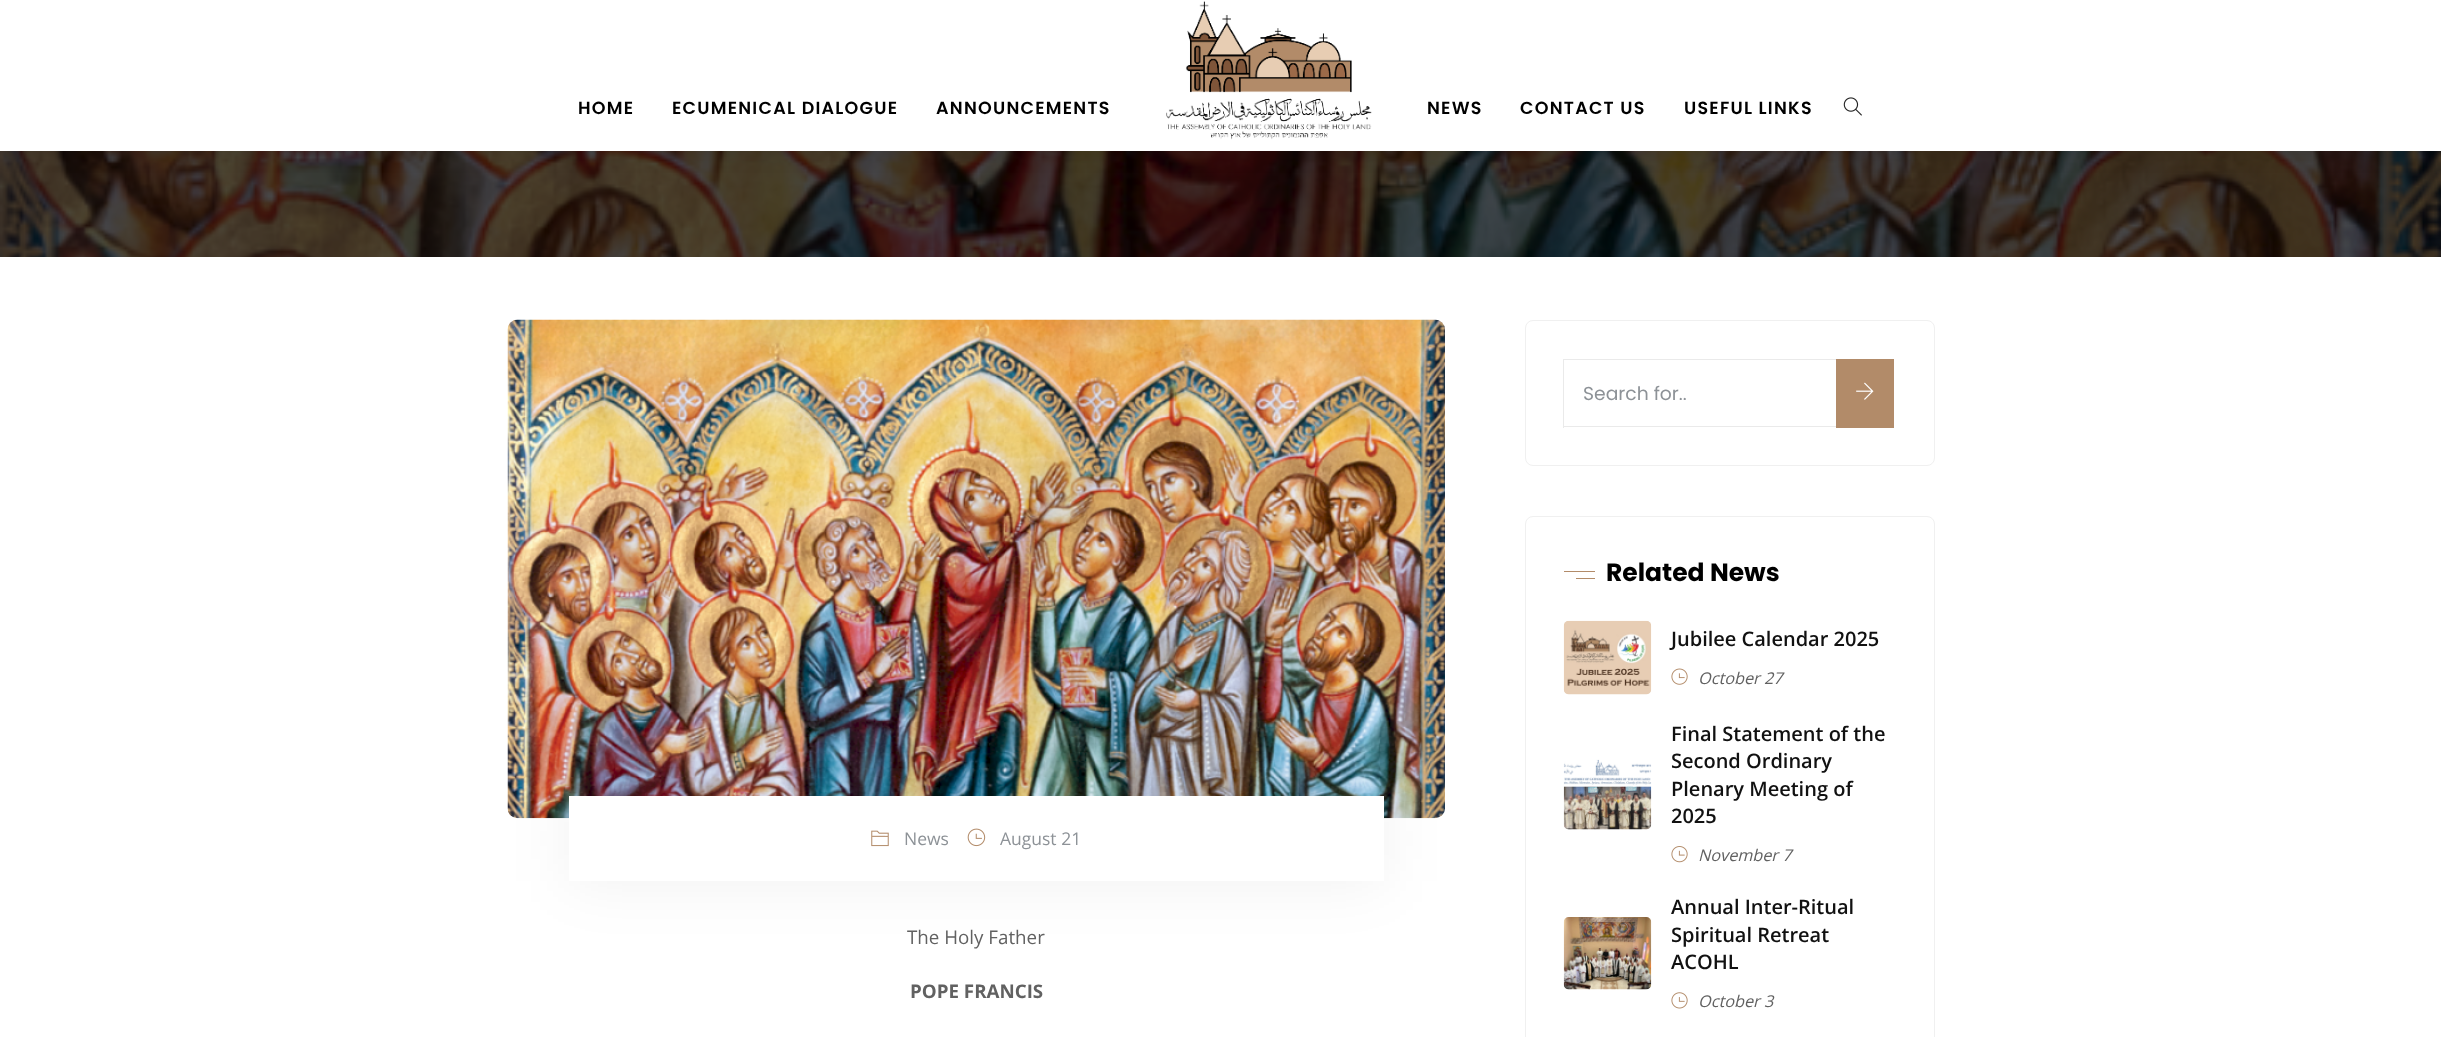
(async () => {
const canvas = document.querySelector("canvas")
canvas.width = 2441
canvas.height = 1037
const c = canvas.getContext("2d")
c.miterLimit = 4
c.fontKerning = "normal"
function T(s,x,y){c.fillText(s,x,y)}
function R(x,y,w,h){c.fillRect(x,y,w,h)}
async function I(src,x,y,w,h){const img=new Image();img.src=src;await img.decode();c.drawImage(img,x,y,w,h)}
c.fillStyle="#fff"
R(0,0,2441,1037)
await I("3.png",0,151,2441,106)
c.fillStyle="#0000001a"
c.filter="blur(12.5px)"
c.beginPath()
c.rect(1,1,2439,149)
c.fill()
c.filter="none"
c.fillStyle="#fff"
R(0,0,2441,151)
c.letterSpacing="1.25px"
c.font="600 17.5px Poppins"
c.fillStyle="#000"
T("HOME",578,114)
T("ECUMENICAL DIALOGUE",672,114)
T("ANNOUNCEMENTS",936,114)
await I("1.png",1166,1,206,139)
T("NEWS",1427,114)
T("CONTACT US",1520,114)
T("USEFUL LINKS",1684,114)
await I("2.png",1843,97,19,19)
await I("4.png",507,319,938,500)
c.fillStyle="#0202020f"
c.filter="blur(31px)"
c.beginPath()
c.rect(569,796,815,85)
c.fill()
c.filter="none"
c.fillStyle="#fff"
R(569,796,815,85)
await I("5.png",871,830,18,17)
c.letterSpacing="0px"
c.font="17.5px Open Sans"
c.fillStyle="#8d9297"
T("News",904,845)
await I("6.png",967,828,19,19)
T("August 21",1000,845)
c.font="18.75px Open Sans"
c.fillStyle="#616161"
T("The Holy Father",907,944)
c.font="bold 18.75px Open Sans"
T("POPE FRANCIS",910,998)
c.beginPath()
c.roundRect(1525.5,320.5,409,145,7.5)
c.strokeStyle="#f0f0f0"
c.stroke()
c.fillStyle="#eaeaea"
R(1563,359,277,1)
R(1563,426,277,1)
R(1563,359,1,69)
c.font="18.75px Poppins"
c.fillStyle="#8d9297"
T("Search for..",1583,400)
c.fillStyle="#b28b69"
R(1836,359,58,69)
await I("7.png",1856,382,18,18)
c.beginPath()
c.roundRect(1525.5,516.5,409,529,7.5)
c.stroke()
R(1564,571,31,1)
c.font="bold 25px Poppins"
c.fillStyle="#000"
T("Related News",1606,581)
c.fillStyle="#b28b69"
R(1576,578,19,1)
await I("8.png",1563,620,89,75)
c.font="600 20px Open Sans"
c.fillStyle="#111"
T("Jubilee Calendar 2025",1671,646)
await I("9.png",1671,668,17,17)
c.font="italic 16.25px Open Sans"
c.fillStyle="#616161"
T("October 27",1698,684)
await I("10.png",1563,759,89,71)
c.font="600 20px Open Sans"
c.fillStyle="#111"
T("Final Statement of the",1671,741)
T("Second Ordinary",1671,768)
T("Plenary Meeting of",1671,796)
T("2025",1671,823)
await I("11.png",1671,846,17,17)
c.font="italic 16.25px Open Sans"
c.fillStyle="#616161"
T("November 7",1698,861)
await I("12.png",1563,917,89,73)
c.font="600 20px Open Sans"
c.fillStyle="#111"
T("Annual Inter-Ritual",1671,914)
T("Spiritual Retreat",1671,942)
T("ACOHL",1671,969)
await I("13.png",1671,992,17,17)
c.font="italic 16.25px Open Sans"
c.fillStyle="#616161"
T("October 3",1698,1007)
})()
